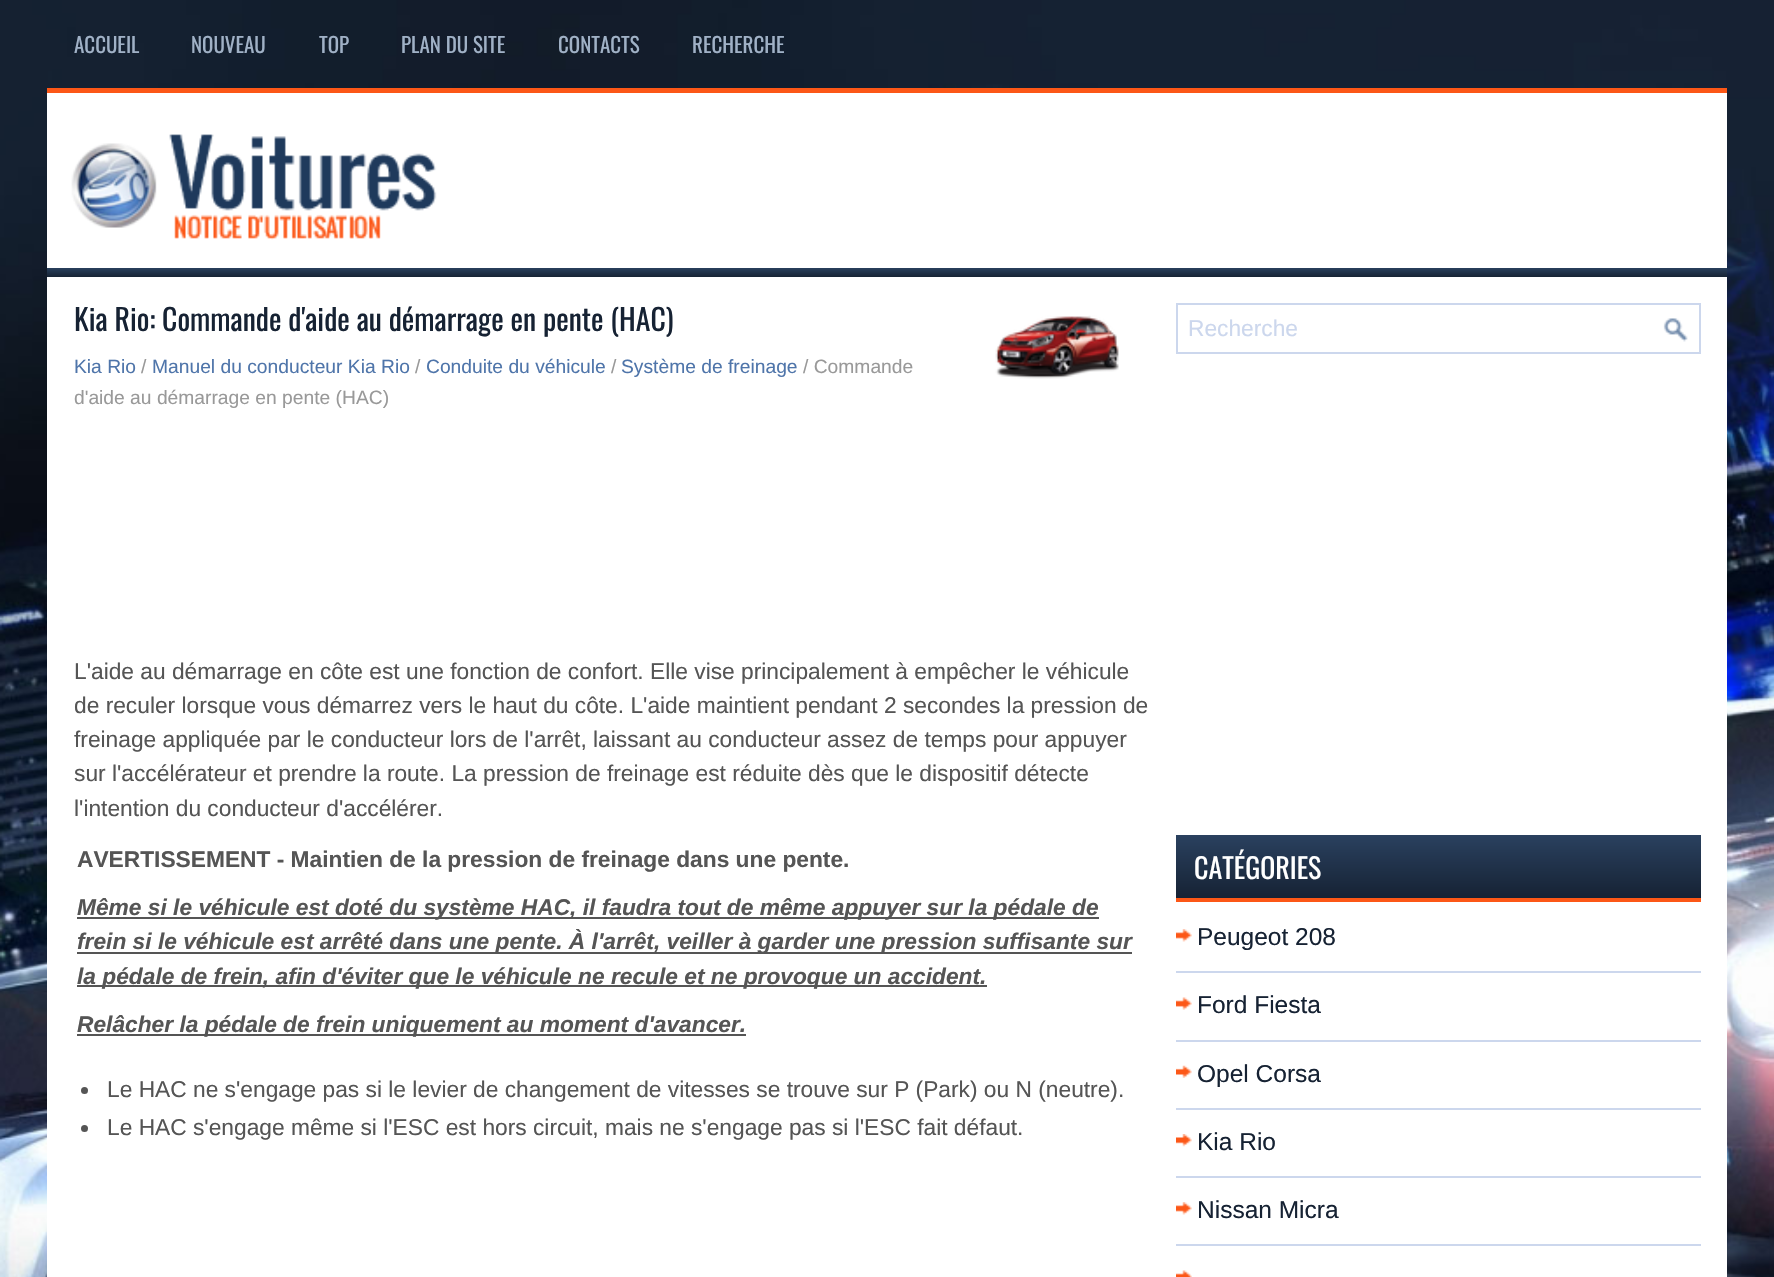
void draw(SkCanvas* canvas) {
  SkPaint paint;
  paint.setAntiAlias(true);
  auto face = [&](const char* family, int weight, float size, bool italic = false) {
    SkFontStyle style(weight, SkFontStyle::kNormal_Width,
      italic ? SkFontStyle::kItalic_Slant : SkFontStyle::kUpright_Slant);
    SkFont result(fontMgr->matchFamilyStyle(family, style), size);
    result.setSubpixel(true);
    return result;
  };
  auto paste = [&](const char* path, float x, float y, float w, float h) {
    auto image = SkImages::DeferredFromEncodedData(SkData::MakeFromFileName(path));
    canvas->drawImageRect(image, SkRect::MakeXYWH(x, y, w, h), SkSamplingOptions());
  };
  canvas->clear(0xffffffff);
  paste("img/1.png", 0, 0, 1774, 1277);
  paint.setColor(0xffffffff);
  canvas->drawRect(SkRect::MakeXYWH(47, 93, 1680, 175), paint);
  paint.setColor(0xfffc5717);
  canvas->drawRect(SkRect::MakeXYWH(47, 88, 1680, 5), paint);
  paste("img/2.png", 71, 134, 366, 106);
  {
    const SkColor colors[] = {0xff29405d, 0xff172334};
    const float stops[] = {0, 1};
    const SkPoint ends[] = {{887, 268}, {887, 277}};
    paint.setShader(SkGradientShader::MakeLinear(ends, colors, stops, 2, SkTileMode::kClamp));
    paint.setAlpha(255);
  }
  canvas->drawRect(SkRect::MakeXYWH(47, 268, 1680, 9), paint);
  paint.setShader(nullptr);
  paint.setColor(0xffffffff);
  canvas->drawRect(SkRect::MakeXYWH(47, 277, 1680, 1000), paint);
  paste("img/3.png", 995, 315, 124, 64);
  {
    const struct { float x, y, w, h; SkColor color; } items[] = {
      {77, 917, 1022, 2, 0xff555555},
      {77, 952, 1055, 2, 0xff555555},
      {77, 985, 910, 2, 0xff555555},
      {77, 1034, 669, 2, 0xff555555},
    };
    for (auto [x, y, w, h, color] : items) {
      paint.setColor(color);
      canvas->drawRect(SkRect::MakeXYWH(x, y, w, h), paint);
    }
  }
  canvas->drawCircle(84.5f, 1090.5f, 3.5f, paint);
  canvas->drawCircle(84.5f, 1128.5f, 3.5f, paint);
  paint.setStroke(true);
  paint.setStrokeWidth(2);
  paint.setColor(0xffccd7ed);
  canvas->drawRect(SkRect::MakeXYWH(1177, 304, 523, 49), paint);
  paste("img/4.png", 1663, 318, 25, 24);
  paint.setStroke(false);
  {
    const SkColor colors[] = {0xff2a415f, 0xff162234};
    const float stops[] = {0, 1};
    const SkPoint ends[] = {{1439, 835}, {1439, 898}};
    paint.setShader(SkGradientShader::MakeLinear(ends, colors, stops, 2, SkTileMode::kClamp));
    paint.setAlpha(255);
  }
  canvas->drawRect(SkRect::MakeXYWH(1176, 835, 525, 63), paint);
  paint.setShader(nullptr);
  paint.setColor(0xfffc5717);
  canvas->drawRect(SkRect::MakeXYWH(1176, 898, 525, 4), paint);
  paste("img/5.png", 1176, 929, 16, 13);
  paint.setColor(0xffccd7ed);
  canvas->drawRect(SkRect::MakeXYWH(1176, 971, 525, 2), paint);
  paste("img/6.png", 1176, 997, 16, 13);
  canvas->drawRect(SkRect::MakeXYWH(1176, 1040, 525, 2), paint);
  paste("img/7.png", 1176, 1065, 16, 13);
  canvas->drawRect(SkRect::MakeXYWH(1176, 1108, 525, 2), paint);
  paste("img/8.png", 1176, 1134, 16, 13);
  canvas->drawRect(SkRect::MakeXYWH(1176, 1176, 525, 2), paint);
  paste("img/5.png", 1176, 1202, 16, 13);
  canvas->drawRect(SkRect::MakeXYWH(1176, 1244, 525, 2), paint);
  paste("img/9.png", 1176, 1270, 16, 7);
  auto f0 = face("Oswald", 400, 21);
  paint.setColor(0xffa0b1c6);
  {
    const struct { const char* s; float x, y; } items[] = {
      {"ACCUEIL", 74, 53},
      {"NOUVEAU", 191, 53},
      {"TOP", 319, 53},
      {"PLAN DU SITE", 401, 53},
      {"CONTACTS", 558, 53},
      {"RECHERCHE", 692, 53},
    };
    for (auto [s, x, y] : items) {
      canvas->drawString(s, x, y, f0, paint);
    }
  }
  auto f1 = face("Oswald", 400, 29.75f);
  paint.setColor(0xff162233);
  canvas->drawString("Kia Rio: Commande d'aide au démarrage en pente (HAC)", 74, 331, f1, paint);
  auto f2 = face("Liberation Sans", 400, 19.25f);
  paint.setColor(0xff4f75aa);
  canvas->drawString("Kia Rio", 74, 373, f2, paint);
  paint.setColor(0xff999999);
  canvas->drawString("/", 141, 373, f2, paint);
  paint.setColor(0xff4f75aa);
  canvas->drawString("Manuel du conducteur Kia Rio", 152, 373, f2, paint);
  paint.setColor(0xff999999);
  canvas->drawString("/", 415, 373, f2, paint);
  paint.setColor(0xff4f75aa);
  canvas->drawString("Conduite du véhicule", 426, 373, f2, paint);
  paint.setColor(0xff999999);
  canvas->drawString("/", 611, 373, f2, paint);
  paint.setColor(0xff4f75aa);
  canvas->drawString("Système de freinage", 621, 373, f2, paint);
  paint.setColor(0xff999999);
  canvas->drawString("/ Commande", 803, 373, f2, paint);
  canvas->drawString("d'aide au démarrage en pente (HAC)", 74, 404, f2, paint);
  auto f3 = face("Liberation Sans", 400, 22.75f);
  paint.setColor(0xff555555);
  {
    const struct { const char* s; float x, y; } items[] = {
      {"L'aide au démarrage en côte est une fonction de confort. Elle vise principalement à empêcher le véhicule", 74, 679},
      {"de reculer lorsque vous démarrez vers le haut du côte. L'aide maintient pendant 2 secondes la pression de", 74, 713},
      {"freinage appliquée par le conducteur lors de l'arrêt, laissant au conducteur assez de temps pour appuyer", 74, 747},
      {"sur l'accélérateur et prendre la route. La pression de freinage est réduite dès que le dispositif détecte", 74, 781},
      {"l'intention du conducteur d'accélérer.", 74, 816},
    };
    for (auto [s, x, y] : items) {
      canvas->drawString(s, x, y, f3, paint);
    }
  }
  auto f4 = face("Liberation Sans", 700, 22.75f);
  canvas->drawString("AVERTISSEMENT - Maintien de la pression de freinage dans une pente.", 77, 867, f4, paint);
  auto f5 = face("Liberation Sans", 700, 22.75f, true);
  {
    const struct { const char* s; float x, y; } items[] = {
      {"Même si le véhicule est doté du système HAC, il faudra tout de même appuyer sur la pédale de", 77, 915},
      {"frein si le véhicule est arrêté dans une pente. À l'arrêt, veiller à garder une pression suffisante sur", 77, 949},
      {"la pédale de frein, afin d'éviter que le véhicule ne recule et ne provoque un accident.", 77, 984},
      {"Relâcher la pédale de frein uniquement au moment d'avancer.", 77, 1032},
    };
    for (auto [s, x, y] : items) {
      canvas->drawString(s, x, y, f5, paint);
    }
  }
  canvas->drawString("Le HAC ne s'engage pas si le levier de changement de vitesses se trouve sur P (Park) ou N (neutre).", 107, 1097, f3, paint);
  canvas->drawString("Le HAC s'engage même si l'ESC est hors circuit, mais ne s'engage pas si l'ESC fait défaut.", 107, 1135, f3, paint);
  paint.setColor(0xffccd7ed);
  canvas->drawString("Recherche", 1188, 336, f3, paint);
  auto f6 = face("Oswald", 400, 28);
  paint.setColor(0xffffffff);
  canvas->drawString("CATÉGORIES", 1194, 879, f6, paint);
  auto f7 = face("Liberation Sans", 400, 24.5f);
  paint.setColor(0xff162233);
  {
    const struct { const char* s; float x, y; } items[] = {
      {"Peugeot 208", 1197, 945},
      {"Ford Fiesta", 1197, 1013},
      {"Opel Corsa", 1197, 1082},
      {"Kia Rio", 1197, 1150},
      {"Nissan Micra", 1197, 1218},
    };
    for (auto [s, x, y] : items) {
      canvas->drawString(s, x, y, f7, paint);
    }
  }
}
